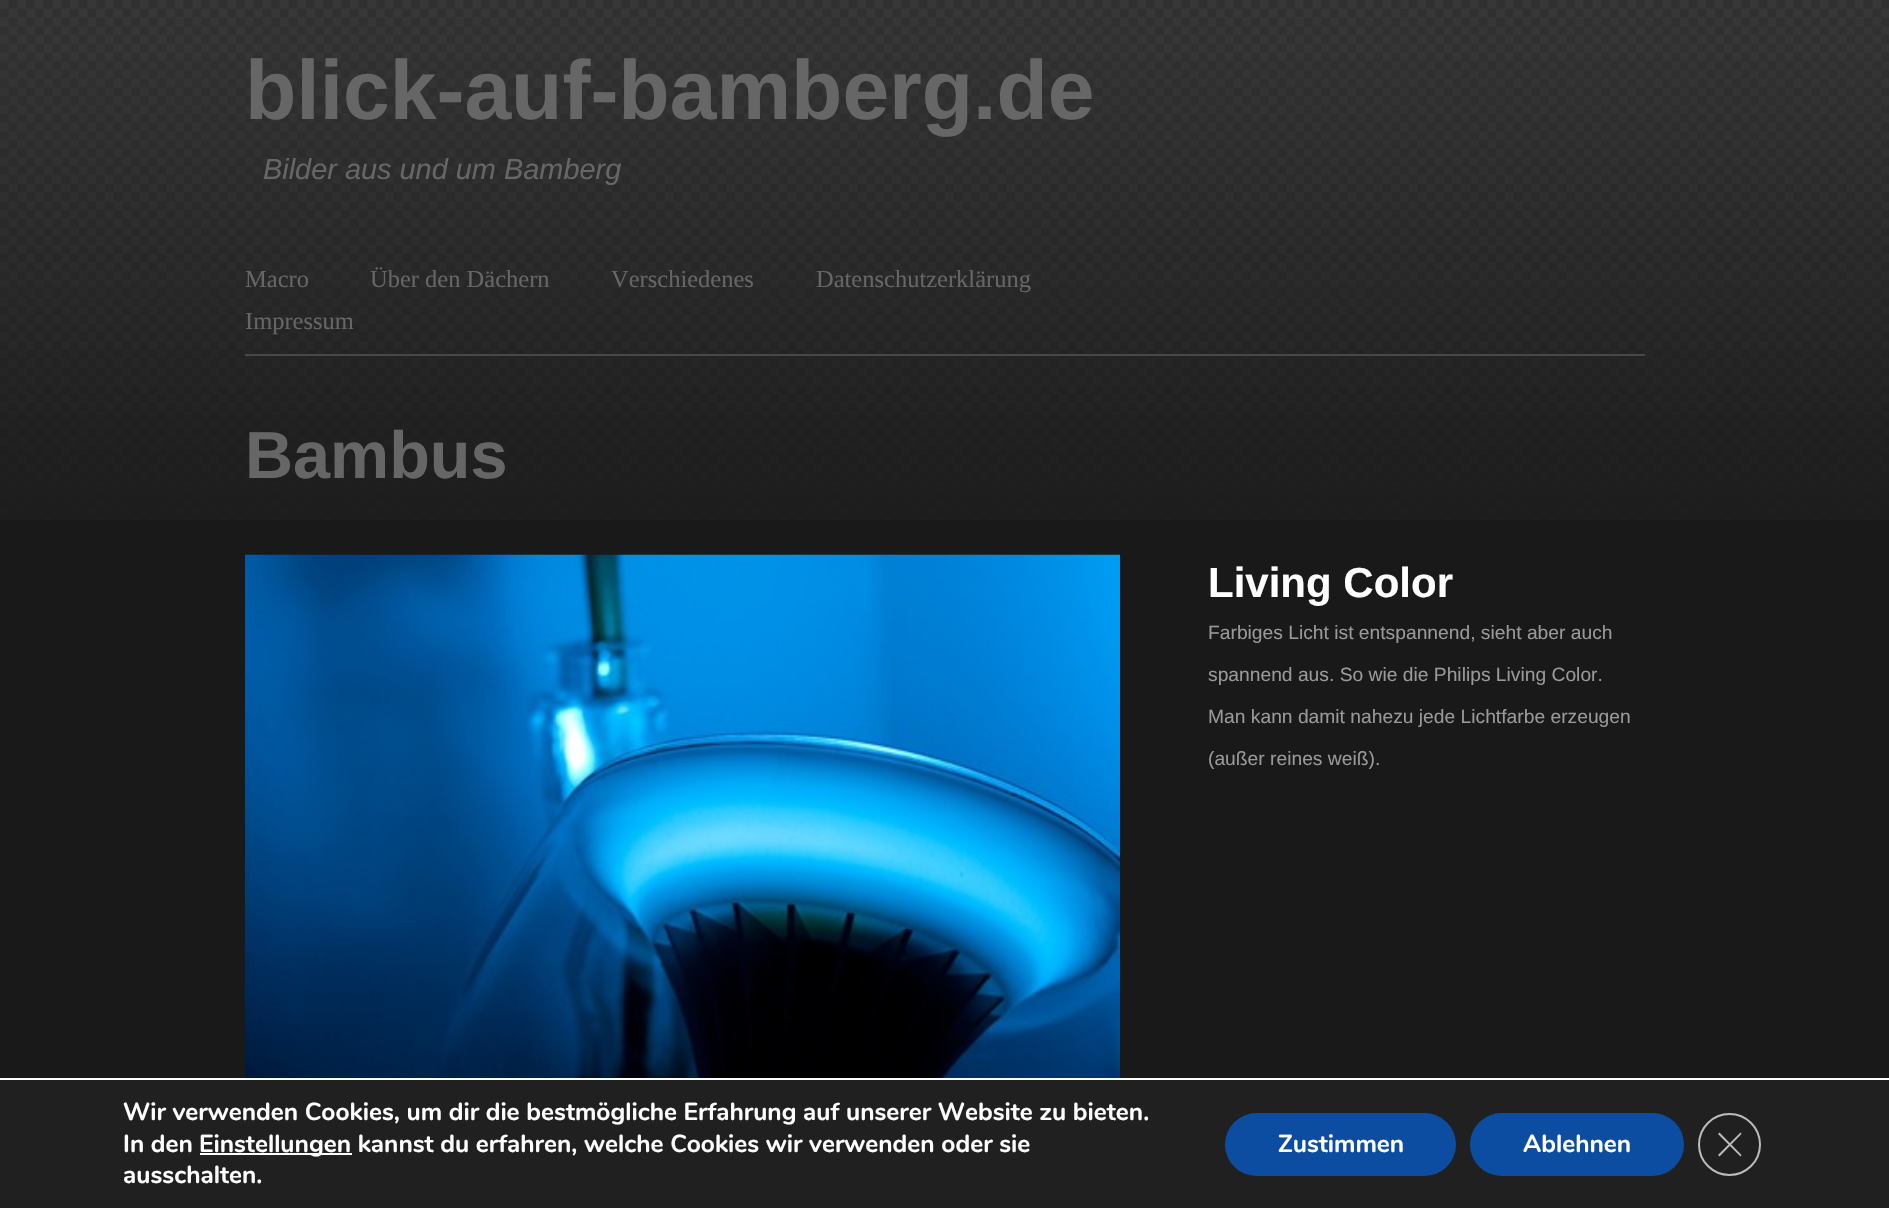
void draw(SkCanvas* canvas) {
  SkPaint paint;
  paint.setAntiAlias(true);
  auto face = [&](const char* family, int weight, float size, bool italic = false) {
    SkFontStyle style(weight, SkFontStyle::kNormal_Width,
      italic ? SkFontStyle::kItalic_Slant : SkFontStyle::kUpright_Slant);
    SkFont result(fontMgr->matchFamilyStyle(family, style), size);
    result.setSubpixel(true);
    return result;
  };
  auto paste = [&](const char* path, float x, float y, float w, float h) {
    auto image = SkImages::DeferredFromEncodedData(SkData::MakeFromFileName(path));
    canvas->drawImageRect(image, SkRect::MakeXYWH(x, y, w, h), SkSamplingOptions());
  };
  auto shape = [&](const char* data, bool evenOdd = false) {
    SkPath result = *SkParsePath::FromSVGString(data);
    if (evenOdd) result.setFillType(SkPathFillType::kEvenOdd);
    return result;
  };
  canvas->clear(0xff191919);
  paste("img/1.png", 0, 0, 1889, 520);
  paint.setColor(0xff484848);
  canvas->drawRect(SkRect::MakeXYWH(245, 354, 1400, 2), paint);
  paste("img/2.png", 245, 554, 875, 524);
  {
    const struct { float x, y, w, h; SkColor color; } items[] = {
      {0, 1080, 1889, 128, 0xff202020},
      {0, 1078, 1889, 2, 0xffffffff},
      {200, 1153, 152, 2, 0xffffffff},
    };
    for (auto [x, y, w, h, color] : items) {
      paint.setColor(color);
      canvas->drawRect(SkRect::MakeXYWH(x, y, w, h), paint);
    }
  }
  paint.setColor(0xff0c4da2);
  canvas->drawRoundRect(SkRect::MakeXYWH(1225, 1113, 231, 63), 31.5f, 31.5f, paint);
  canvas->drawRoundRect(SkRect::MakeXYWH(1470, 1113, 214, 63), 31.5f, 31.5f, paint);
  paint.setStroke(true);
  paint.setStrokeWidth(2);
  paint.setColor(0xffbcbcbc);
  canvas->drawCircle(1729.5f, 1144.5f, 30.5f, paint);
  paint.setStroke(false);
  canvas->drawPath(shape("M1740.5 1132.5L1741.5 1134L1719.5 1156.5L1718 1155Z"), paint);
  canvas->drawPath(shape("M1718 1134L1719.5 1132.5L1741.5 1155L1740.5 1156.5Z"), paint);
  auto f0 = face("Liberation Sans", 700, 84);
  paint.setColor(0xff666666);
  canvas->drawString("blick-auf-bamberg.de", 245, 119, f0, paint);
  auto f1 = face("Liberation Sans", 400, 28.9f, true);
  canvas->drawString("Bilder aus und um Bamberg", 263, 179, f1, paint);
  auto f2 = face("Liberation Serif", 400, 24.5f);
  {
    const struct { const char* s; float x, y; } items[] = {
      {"Macro", 245, 287},
      {"Über den Dächern", 370, 287},
      {"Verschiedenes", 611, 287},
      {"Datenschutzerklärung", 816, 287},
      {"Impressum", 245, 329},
    };
    for (auto [s, x, y] : items) {
      canvas->drawString(s, x, y, f2, paint);
    }
  }
  auto f3 = face("Liberation Sans", 700, 66.5f);
  canvas->drawString("Bambus", 245, 478, f3, paint);
  auto f4 = face("Liberation Sans", 700, 42);
  paint.setColor(0xffffffff);
  canvas->drawString("Living Color", 1208, 597, f4, paint);
  auto f5 = face("Liberation Sans", 400, 19.25f);
  paint.setColor(0xff999999);
  {
    const struct { const char* s; float x, y; } items[] = {
      {"Farbiges Licht ist entspannend, sieht aber auch", 1208, 639},
      {"spannend aus. So wie die Philips Living Color.", 1208, 681},
      {"Man kann damit nahezu jede Lichtfarbe erzeugen", 1208, 723},
      {"(außer reines weiß).", 1208, 765},
    };
    for (auto [s, x, y] : items) {
      canvas->drawString(s, x, y, f5, paint);
    }
  }
  auto f6 = face("Nunito", 700, 24.5f);
  paint.setColor(0xffffffff);
  {
    const struct { const char* s; float x, y; } items[] = {
      {"Wir verwenden Cookies, um dir die bestmögliche Erfahrung auf unserer Website zu bieten.", 123, 1120},
      {"In den", 123, 1152},
      {"Einstellungen kannst du erfahren, welche Cookies wir verwenden oder sie", 199, 1152},
      {"ausschalten.", 123, 1183},
      {"Zustimmen", 1278, 1152},
      {"Ablehnen", 1523, 1152},
    };
    for (auto [s, x, y] : items) {
      canvas->drawString(s, x, y, f6, paint);
    }
  }
}
